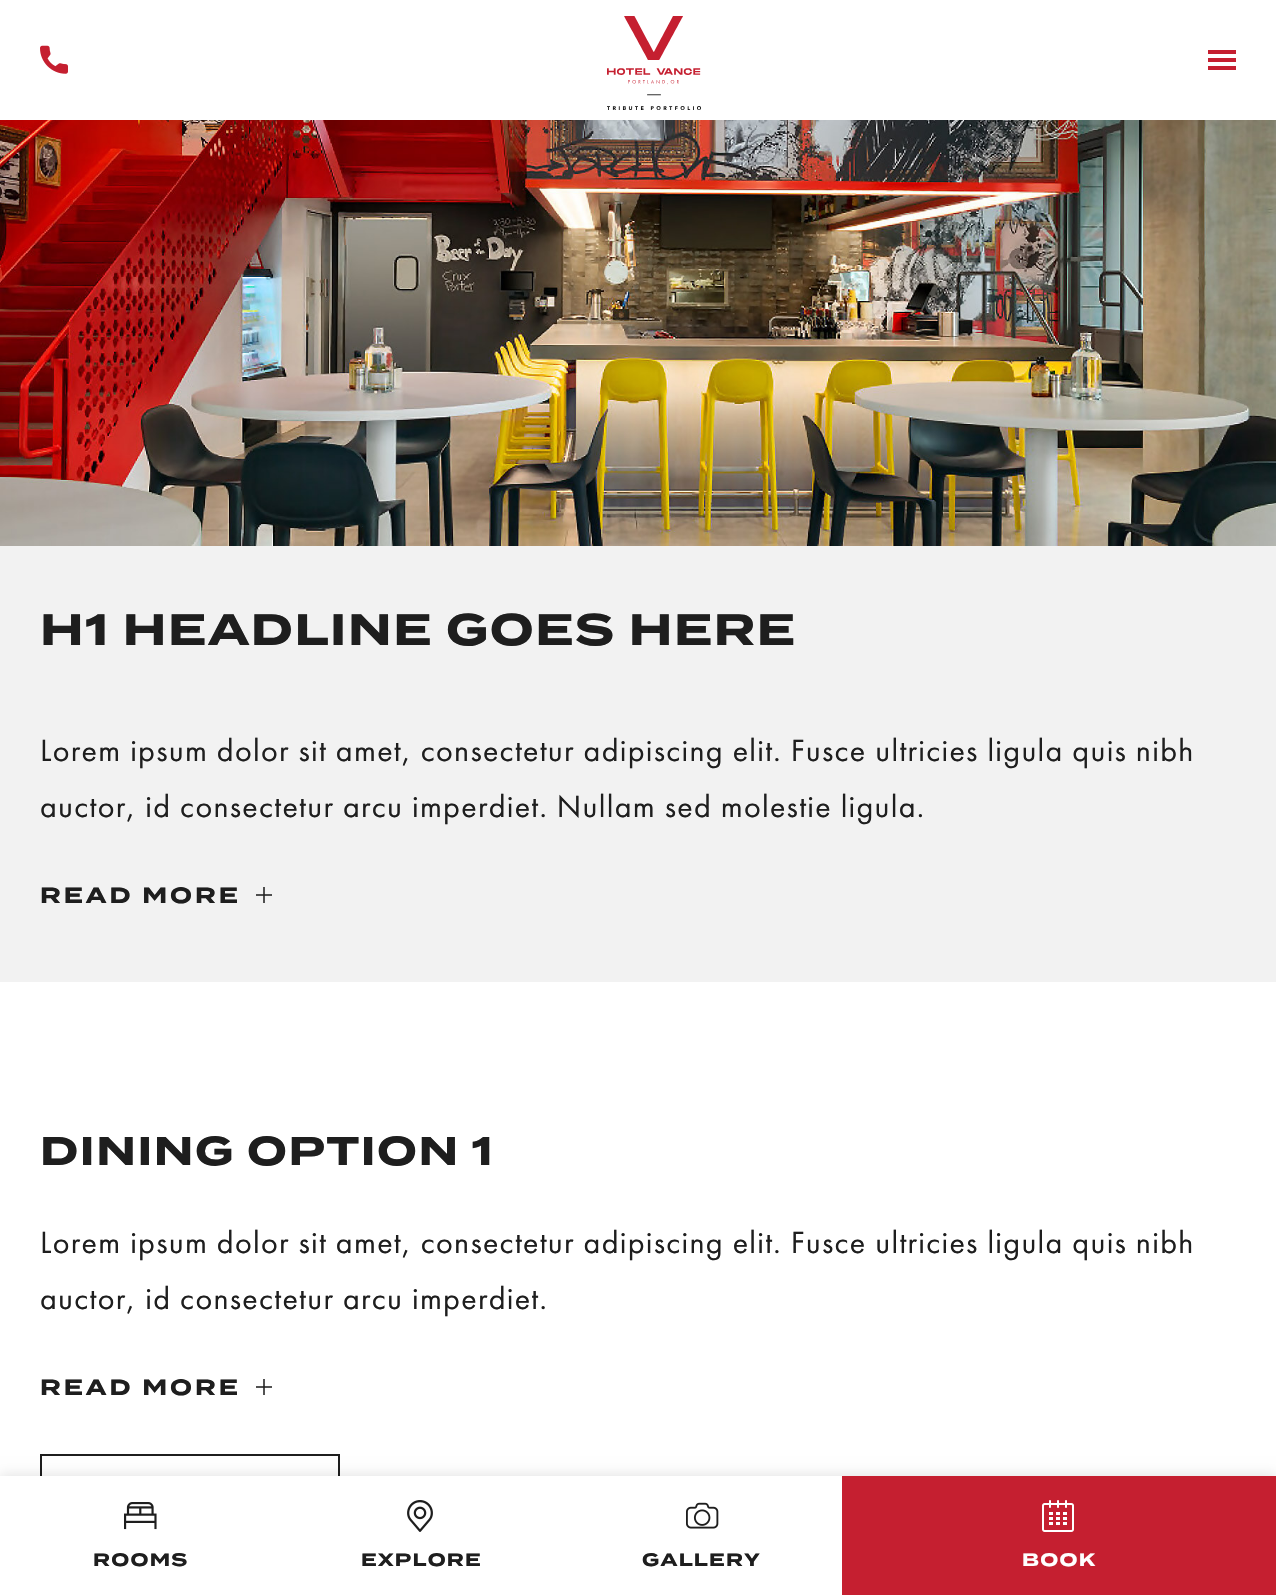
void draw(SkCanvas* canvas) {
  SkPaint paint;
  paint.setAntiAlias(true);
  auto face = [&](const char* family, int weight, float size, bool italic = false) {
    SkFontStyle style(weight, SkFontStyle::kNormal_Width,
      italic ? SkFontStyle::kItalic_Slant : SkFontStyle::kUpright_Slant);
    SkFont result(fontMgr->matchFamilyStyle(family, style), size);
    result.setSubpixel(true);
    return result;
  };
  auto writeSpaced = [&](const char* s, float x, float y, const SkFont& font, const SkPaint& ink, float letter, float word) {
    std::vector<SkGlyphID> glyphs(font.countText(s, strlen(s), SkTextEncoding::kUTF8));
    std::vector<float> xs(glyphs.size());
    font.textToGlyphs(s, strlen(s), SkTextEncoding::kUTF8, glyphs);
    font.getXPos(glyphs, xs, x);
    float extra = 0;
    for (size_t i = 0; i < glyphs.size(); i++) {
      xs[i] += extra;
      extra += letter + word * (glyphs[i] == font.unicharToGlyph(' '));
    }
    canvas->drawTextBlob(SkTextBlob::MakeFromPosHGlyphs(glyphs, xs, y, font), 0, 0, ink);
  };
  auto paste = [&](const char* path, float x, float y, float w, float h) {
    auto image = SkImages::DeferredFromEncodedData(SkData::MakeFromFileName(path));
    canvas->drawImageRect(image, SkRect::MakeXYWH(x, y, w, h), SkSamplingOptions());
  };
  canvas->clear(0xfff2f2f2);
  paint.setColor(0xffffffff);
  canvas->drawRect(SkRect::MakeXYWH(0, 0, 1276, 120), paint);
  paste("img/1.png", 40, 45, 28, 29);
  paste("img/2.png", 607, 16, 94, 94);
  {
    const struct { float x, y, w, h; SkColor color; } items[] = {
      {1208, 50, 28, 4, 0xffc51f30},
      {1208, 58, 28, 4, 0xffc51f30},
      {1208, 66, 28, 4, 0xffc51f30},
    };
    for (auto [x, y, w, h, color] : items) {
      paint.setColor(color);
      canvas->drawRect(SkRect::MakeXYWH(x, y, w, h), paint);
    }
  }
  paste("img/3.png", 0, 120, 1276, 426);
  paste("img/4.png", 256, 887, 16, 16);
  paint.setColor(0xffffffff);
  canvas->drawRect(SkRect::MakeXYWH(0, 982, 1276, 494), paint);
  paste("img/5.png", 256, 1379, 16, 16);
  paint.setStroke(true);
  paint.setStrokeWidth(2);
  paint.setColor(0xff1e1e1e);
  canvas->drawRect(SkRect::MakeXYWH(41, 1455, 298, 82), paint);
  paint.setStroke(false);
  paint.setColor(0x1a000000);
  paint.setMaskFilter(SkMaskFilter::MakeBlur(kNormal_SkBlurStyle, 6));
  canvas->drawRect(SkRect::MakeXYWH(0, 1474, 1276, 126), paint);
  paint.setMaskFilter(nullptr);
  paint.setColor(0xffffffff);
  canvas->drawRect(SkRect::MakeXYWH(0, 1476, 842, 119), paint);
  paste("img/6.png", 124, 1502, 33, 28);
  paste("img/7.png", 407, 1500, 26, 32);
  paste("img/8.png", 686, 1502, 33, 27);
  paint.setColor(0xffc51f30);
  canvas->drawRect(SkRect::MakeXYWH(842, 1476, 434, 119), paint);
  paste("img/9.png", 1042, 1500, 32, 32);
  auto f0 = face("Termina", 700, 44);
  paint.setColor(0xff1e1e1e);
  writeSpaced("H1 HEADLINE GOES HERE", 40, 645, f0, paint, 1.6f, 0);
  auto f1 = face("Futura PT", 400, 32);
  writeSpaced("Lorem ipsum dolor sit amet, consectetur adipiscing elit. Fusce ultricies ligula quis nibh", 40, 761, f1, paint, 1.28f, 0);
  writeSpaced("auctor, id consectetur arcu imperdiet. Nullam sed molestie ligula.", 40, 817, f1, paint, 1.28f, 0);
  auto f2 = face("Termina", 700, 22);
  writeSpaced("READ MORE", 40, 903, f2, paint, 3, 0);
  auto f3 = face("Termina", 700, 40);
  writeSpaced("DINING OPTION 1", 40, 1165, f3, paint, 1.6f, 0);
  writeSpaced("Lorem ipsum dolor sit amet, consectetur adipiscing elit. Fusce ultricies ligula quis nibh", 40, 1253, f1, paint, 1.28f, 0);
  writeSpaced("auctor, id consectetur arcu imperdiet.", 40, 1309, f1, paint, 1.28f, 0);
  writeSpaced("READ MORE", 40, 1395, f2, paint, 3, 0);
  auto f4 = face("Termina", 700, 18);
  {
    const struct { const char* s; float x, y; } items[] = {
      {"ROOMS", 93, 1566},
      {"EXPLORE", 361, 1566},
      {"GALLERY", 642, 1566},
    };
    for (auto [s, x, y] : items) {
      writeSpaced(s, x, y, f4, paint, 1.28f, 0);
    }
  }
  paint.setColor(0xffffffff);
  writeSpaced("BOOK", 1022, 1566, f4, paint, 1.28f, 0);
}
